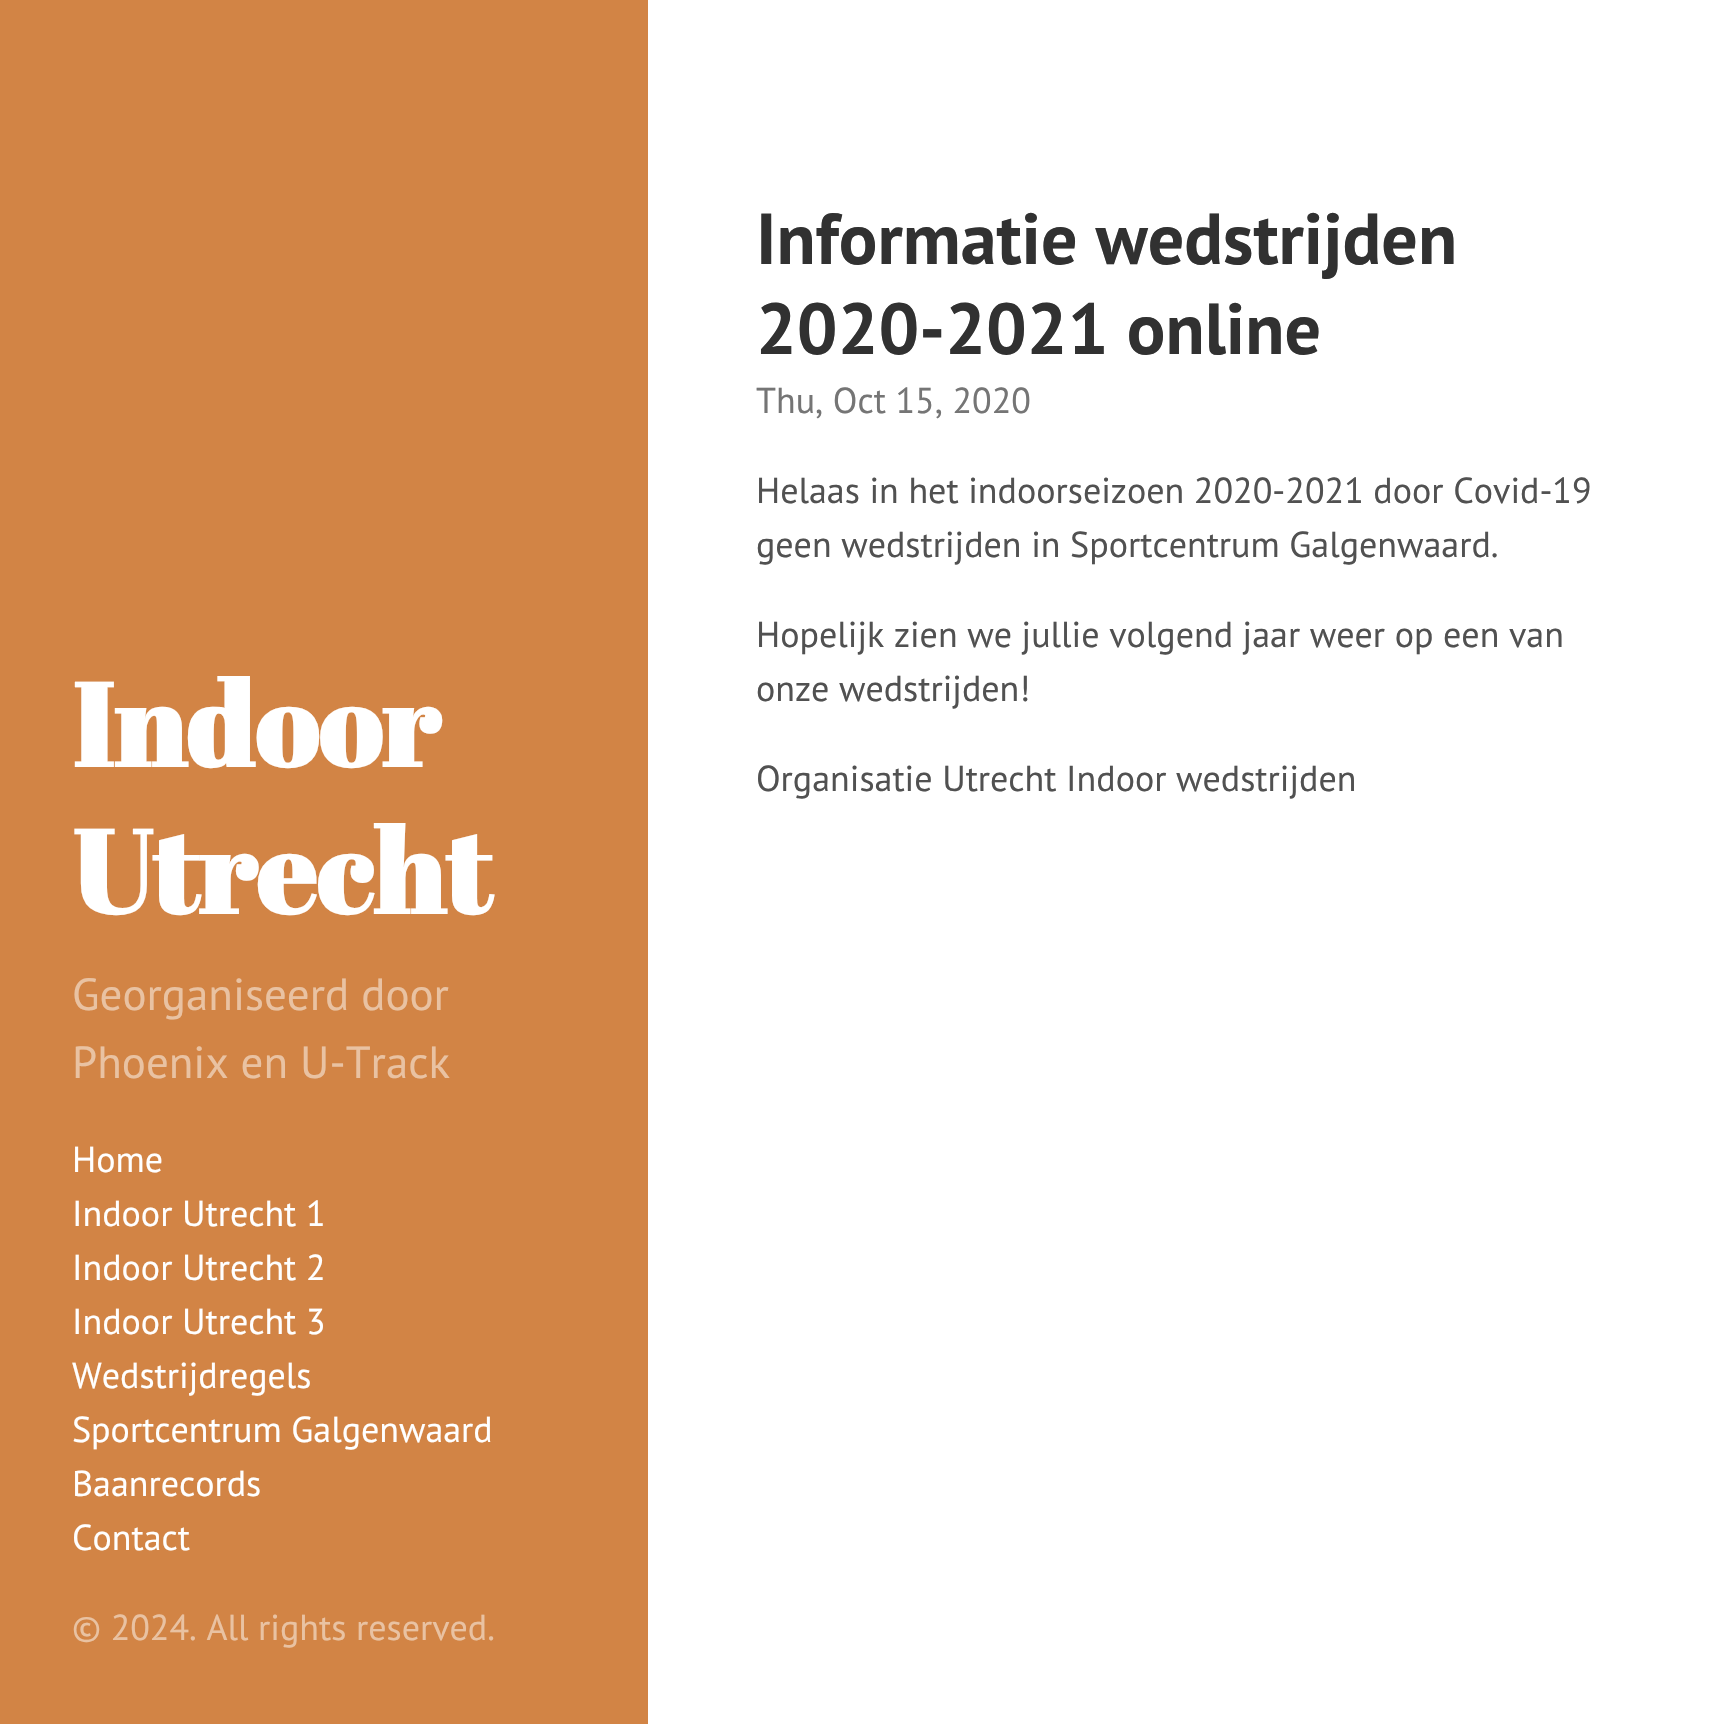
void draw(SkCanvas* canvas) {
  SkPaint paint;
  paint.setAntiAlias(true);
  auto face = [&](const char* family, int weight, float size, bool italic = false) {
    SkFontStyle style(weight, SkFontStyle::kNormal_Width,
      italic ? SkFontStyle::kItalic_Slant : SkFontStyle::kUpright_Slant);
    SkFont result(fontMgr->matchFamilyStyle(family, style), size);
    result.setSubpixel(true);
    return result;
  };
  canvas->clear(0xffffffff);
  paint.setColor(0xffd28445);
  canvas->drawRect(SkRect::MakeXYWH(0, 0, 648, 1724), paint);
  auto f0 = face("PT Sans", 700, 72);
  paint.setColor(0xff313131);
  canvas->drawString("Informatie wedstrijden", 756, 264, f0, paint);
  canvas->drawString("2020-2021 online", 756, 354, f0, paint);
  auto f1 = face("PT Sans", 400, 36);
  paint.setColor(0xff757575);
  canvas->drawString("Thu, Oct 15, 2020", 756, 413, f1, paint);
  paint.setColor(0xff515151);
  {
    const struct { const char* s; float x, y; } items[] = {
      {"Helaas in het indoorseizoen 2020-2021 door Covid-19", 756, 503},
      {"geen wedstrijden in Sportcentrum Galgenwaard.", 756, 557},
      {"Hopelijk zien we jullie volgend jaar weer op een van", 756, 647},
      {"onze wedstrijden!", 756, 701},
      {"Organisatie Utrecht Indoor wedstrijden", 756, 791},
    };
    for (auto [s, x, y] : items) {
      canvas->drawString(s, x, y, f1, paint);
    }
  }
  auto f2 = face("Abril Fatface", 700, 117);
  paint.setColor(0xffffffff);
  canvas->drawString("Indoor", 72, 767, f2, paint);
  canvas->drawString("Utrecht", 72, 914, f2, paint);
  auto f3 = face("PT Sans", 400, 45);
  paint.setColor(0xffe9c2a2);
  canvas->drawString("Georganiseerd door", 72, 1010, f3, paint);
  canvas->drawString("Phoenix en U-Track", 72, 1078, f3, paint);
  paint.setColor(0xffffffff);
  {
    const struct { const char* s; float x, y; } items[] = {
      {"Home", 72, 1172},
      {"Indoor Utrecht 1", 72, 1226},
      {"Indoor Utrecht 2", 72, 1280},
      {"Indoor Utrecht 3", 72, 1334},
      {"Wedstrijdregels", 72, 1388},
      {"Sportcentrum Galgenwaard", 72, 1442},
      {"Baanrecords", 72, 1496},
      {"Contact", 72, 1550},
    };
    for (auto [s, x, y] : items) {
      canvas->drawString(s, x, y, f1, paint);
    }
  }
  paint.setColor(0xffe9c2a2);
  canvas->drawString("© 2024. All rights reserved.", 72, 1640, f1, paint);
}
